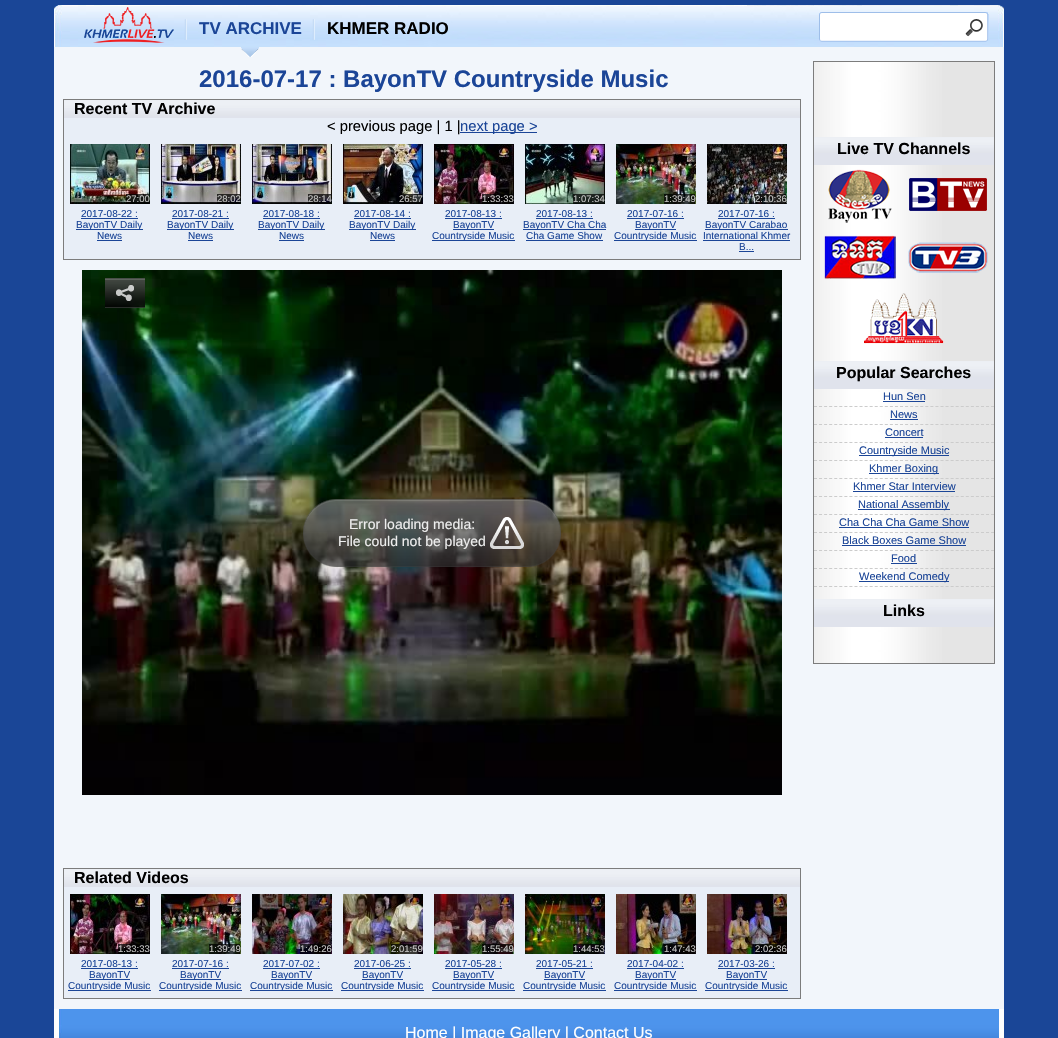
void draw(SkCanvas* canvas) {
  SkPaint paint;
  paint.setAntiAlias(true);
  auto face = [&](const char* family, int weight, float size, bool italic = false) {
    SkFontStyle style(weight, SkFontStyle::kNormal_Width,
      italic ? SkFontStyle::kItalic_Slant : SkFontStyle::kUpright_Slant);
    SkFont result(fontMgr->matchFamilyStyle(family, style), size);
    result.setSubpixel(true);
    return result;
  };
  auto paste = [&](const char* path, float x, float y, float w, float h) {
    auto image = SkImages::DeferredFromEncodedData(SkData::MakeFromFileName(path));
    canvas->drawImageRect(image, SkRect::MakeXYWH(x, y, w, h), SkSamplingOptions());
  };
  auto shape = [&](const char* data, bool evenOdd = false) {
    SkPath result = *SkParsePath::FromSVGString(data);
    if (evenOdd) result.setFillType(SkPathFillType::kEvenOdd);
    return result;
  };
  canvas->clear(0xff1a4697);
  paste("img/1.png", 54, 5, 950, 42);
  paste("img/2.png", 84, 7, 90, 36);
  paste("img/3.png", 184, 19, 3, 21);
  paint.setColor(0xfff2f6fb);
  canvas->drawRect(SkRect::MakeXYWH(54, 47, 950, 962), paint);
  paste("img/4.png", 241, 47, 18, 10);
  paste("img/3.png", 312, 19, 3, 21);
  paste("img/5.png", 819, 12, 170, 30);
  paste("img/6.png", 962, 16, 24, 24);
  paint.setColor(0xffe8eef7);
  canvas->drawRect(SkRect::MakeXYWH(64, 118, 736, 141), paint);
  paint.setStroke(true);
  paint.setStrokeWidth(1);
  paint.setColor(0xff7c7c7c);
  canvas->drawRect(SkRect::MakeXYWH(63.5f, 99.5f, 737, 160), paint);
  paste("img/7.png", 64, 100, 736, 18);
  paint.setStroke(false);
  paint.setColor(0xff1b4597);
  canvas->drawRect(SkRect::MakeXYWH(460, 132, 77, 1), paint);
  paste("img/8.png", 70, 144, 80, 60);
  {
    const struct { float x, y, w, h; SkColor color; } items[] = {
      {126, 194, 23, 10, 0xbf000000},
      {81, 218, 57, 1, 0xff1b4597},
      {76, 229, 67, 1, 0xff1b4597},
      {97, 240, 25, 1, 0xff1b4597},
    };
    for (auto [x, y, w, h, color] : items) {
      paint.setColor(color);
      canvas->drawRect(SkRect::MakeXYWH(x, y, w, h), paint);
    }
  }
  paste("img/9.png", 161, 144, 80, 60);
  {
    const struct { float x, y, w, h; SkColor color; } items[] = {
      {217, 194, 23, 10, 0xbf000000},
      {172, 218, 57, 1, 0xff1b4597},
      {167, 229, 67, 1, 0xff1b4597},
      {188, 240, 25, 1, 0xff1b4597},
    };
    for (auto [x, y, w, h, color] : items) {
      paint.setColor(color);
      canvas->drawRect(SkRect::MakeXYWH(x, y, w, h), paint);
    }
  }
  paste("img/10.png", 252, 144, 80, 60);
  {
    const struct { float x, y, w, h; SkColor color; } items[] = {
      {308, 194, 23, 10, 0xbf000000},
      {263, 218, 57, 1, 0xff1b4597},
      {258, 229, 67, 1, 0xff1b4597},
      {279, 240, 25, 1, 0xff1b4597},
    };
    for (auto [x, y, w, h, color] : items) {
      paint.setColor(color);
      canvas->drawRect(SkRect::MakeXYWH(x, y, w, h), paint);
    }
  }
  paste("img/11.png", 343, 144, 80, 60);
  {
    const struct { float x, y, w, h; SkColor color; } items[] = {
      {399, 194, 23, 10, 0xbf000000},
      {354, 218, 57, 1, 0xff1b4597},
      {349, 229, 67, 1, 0xff1b4597},
      {370, 240, 25, 1, 0xff1b4597},
    };
    for (auto [x, y, w, h, color] : items) {
      paint.setColor(color);
      canvas->drawRect(SkRect::MakeXYWH(x, y, w, h), paint);
    }
  }
  paste("img/12.png", 434, 144, 80, 60);
  {
    const struct { float x, y, w, h; SkColor color; } items[] = {
      {482, 194, 31, 10, 0xbf000000},
      {445, 218, 57, 1, 0xff1b4597},
      {453, 229, 41, 1, 0xff1b4597},
      {432, 240, 83, 1, 0xff1b4597},
    };
    for (auto [x, y, w, h, color] : items) {
      paint.setColor(color);
      canvas->drawRect(SkRect::MakeXYWH(x, y, w, h), paint);
    }
  }
  paste("img/13.png", 525, 144, 80, 60);
  {
    const struct { float x, y, w, h; SkColor color; } items[] = {
      {573, 194, 31, 10, 0xbf000000},
      {536, 218, 57, 1, 0xff1b4597},
      {523, 229, 83, 1, 0xff1b4597},
      {526, 240, 77, 1, 0xff1b4597},
    };
    for (auto [x, y, w, h, color] : items) {
      paint.setColor(color);
      canvas->drawRect(SkRect::MakeXYWH(x, y, w, h), paint);
    }
  }
  paste("img/14.png", 616, 144, 80, 60);
  {
    const struct { float x, y, w, h; SkColor color; } items[] = {
      {664, 194, 31, 10, 0xbf000000},
      {627, 218, 57, 1, 0xff1b4597},
      {635, 229, 41, 1, 0xff1b4597},
      {614, 240, 83, 1, 0xff1b4597},
    };
    for (auto [x, y, w, h, color] : items) {
      paint.setColor(color);
      canvas->drawRect(SkRect::MakeXYWH(x, y, w, h), paint);
    }
  }
  paste("img/15.png", 707, 144, 80, 60);
  {
    const struct { float x, y, w, h; SkColor color; } items[] = {
      {755, 194, 31, 10, 0xbf000000},
      {718, 218, 57, 1, 0xff1b4597},
      {705, 229, 83, 1, 0xff1b4597},
      {703, 240, 87, 1, 0xff1b4597},
      {739, 251, 15, 1, 0xff1b4597},
    };
    for (auto [x, y, w, h, color] : items) {
      paint.setColor(color);
      canvas->drawRect(SkRect::MakeXYWH(x, y, w, h), paint);
    }
  }
  paste("img/18.png", 82, 270, 700, 525);
  paste("img/16.png", 105, 278, 40, 30);
  paste("img/17.png", 116, 285, 18, 16);
  paste("img/19.png", 303, 499, 258, 68);
  paste("img/20.png", 490, 517, 34, 32);
  paint.setColor(0xffe8eef7);
  canvas->drawRect(SkRect::MakeXYWH(64, 887, 736, 111), paint);
  paint.setStroke(true);
  paint.setColor(0xff7c7c7c);
  canvas->drawRect(SkRect::MakeXYWH(63.5f, 868.5f, 737, 130), paint);
  paste("img/7.png", 64, 869, 736, 18);
  paste("img/12.png", 70, 894, 80, 60);
  paint.setStroke(false);
  {
    const struct { float x, y, w, h; SkColor color; } items[] = {
      {118, 944, 31, 10, 0xbf000000},
      {81, 968, 57, 1, 0xff1b4597},
      {89, 979, 41, 1, 0xff1b4597},
      {68, 990, 83, 1, 0xff1b4597},
    };
    for (auto [x, y, w, h, color] : items) {
      paint.setColor(color);
      canvas->drawRect(SkRect::MakeXYWH(x, y, w, h), paint);
    }
  }
  paste("img/14.png", 161, 894, 80, 60);
  {
    const struct { float x, y, w, h; SkColor color; } items[] = {
      {209, 944, 31, 10, 0xbf000000},
      {172, 968, 57, 1, 0xff1b4597},
      {180, 979, 41, 1, 0xff1b4597},
      {159, 990, 83, 1, 0xff1b4597},
    };
    for (auto [x, y, w, h, color] : items) {
      paint.setColor(color);
      canvas->drawRect(SkRect::MakeXYWH(x, y, w, h), paint);
    }
  }
  paste("img/21.png", 252, 894, 80, 60);
  {
    const struct { float x, y, w, h; SkColor color; } items[] = {
      {300, 944, 31, 10, 0xbf000000},
      {263, 968, 57, 1, 0xff1b4597},
      {271, 979, 41, 1, 0xff1b4597},
      {250, 990, 83, 1, 0xff1b4597},
    };
    for (auto [x, y, w, h, color] : items) {
      paint.setColor(color);
      canvas->drawRect(SkRect::MakeXYWH(x, y, w, h), paint);
    }
  }
  paste("img/22.png", 343, 894, 80, 60);
  {
    const struct { float x, y, w, h; SkColor color; } items[] = {
      {391, 944, 31, 10, 0xbf000000},
      {354, 968, 57, 1, 0xff1b4597},
      {362, 979, 41, 1, 0xff1b4597},
      {341, 990, 83, 1, 0xff1b4597},
    };
    for (auto [x, y, w, h, color] : items) {
      paint.setColor(color);
      canvas->drawRect(SkRect::MakeXYWH(x, y, w, h), paint);
    }
  }
  paste("img/23.png", 434, 894, 80, 60);
  {
    const struct { float x, y, w, h; SkColor color; } items[] = {
      {482, 944, 31, 10, 0xbf000000},
      {445, 968, 57, 1, 0xff1b4597},
      {453, 979, 41, 1, 0xff1b4597},
      {432, 990, 83, 1, 0xff1b4597},
    };
    for (auto [x, y, w, h, color] : items) {
      paint.setColor(color);
      canvas->drawRect(SkRect::MakeXYWH(x, y, w, h), paint);
    }
  }
  paste("img/24.png", 525, 894, 80, 60);
  {
    const struct { float x, y, w, h; SkColor color; } items[] = {
      {573, 944, 31, 10, 0xbf000000},
      {536, 968, 57, 1, 0xff1b4597},
      {544, 979, 41, 1, 0xff1b4597},
      {523, 990, 83, 1, 0xff1b4597},
    };
    for (auto [x, y, w, h, color] : items) {
      paint.setColor(color);
      canvas->drawRect(SkRect::MakeXYWH(x, y, w, h), paint);
    }
  }
  paste("img/25.png", 616, 894, 80, 60);
  {
    const struct { float x, y, w, h; SkColor color; } items[] = {
      {664, 944, 31, 10, 0xbf000000},
      {627, 968, 57, 1, 0xff1b4597},
      {635, 979, 41, 1, 0xff1b4597},
      {614, 990, 83, 1, 0xff1b4597},
    };
    for (auto [x, y, w, h, color] : items) {
      paint.setColor(color);
      canvas->drawRect(SkRect::MakeXYWH(x, y, w, h), paint);
    }
  }
  paste("img/26.png", 707, 894, 80, 60);
  {
    const struct { float x, y, w, h; SkColor color; } items[] = {
      {755, 944, 31, 10, 0xbf000000},
      {718, 968, 57, 1, 0xff1b4597},
      {726, 979, 41, 1, 0xff1b4597},
      {705, 990, 83, 1, 0xff1b4597},
    };
    for (auto [x, y, w, h, color] : items) {
      paint.setColor(color);
      canvas->drawRect(SkRect::MakeXYWH(x, y, w, h), paint);
    }
  }
  paste("img/27.png", 814, 62, 180, 601);
  paint.setStroke(true);
  paint.setColor(0xff7c7c7c);
  canvas->drawRect(SkRect::MakeXYWH(813.5f, 61.5f, 181, 602), paint);
  paste("img/28.png", 814, 137, 180, 28);
  paste("img/29.png", 828, 169, 64, 54);
  paste("img/30.png", 909, 178, 78, 33);
  paste("img/31.png", 824, 235, 72, 44);
  paste("img/32.png", 908, 242, 80, 31);
  paste("img/33.png", 864, 293, 80, 51);
  paste("img/28.png", 814, 361, 180, 28);
  paint.setColor(0xffcccccc);
  paint.setPathEffect(SkDashPathEffect::Make({{3, 2.06f}}, 0));
  canvas->drawPath(shape("M814 406.5H994"), paint);
  paint.setPathEffect(nullptr);
  paint.setStroke(false);
  paint.setColor(0xff1b4597);
  canvas->drawRect(SkRect::MakeXYWH(883, 401, 42, 1), paint);
  paint.setStroke(true);
  paint.setColor(0xffcccccc);
  paint.setPathEffect(SkDashPathEffect::Make({{3, 2.06f}}, 0));
  canvas->drawPath(shape("M814 424.5H994"), paint);
  paint.setPathEffect(nullptr);
  paint.setStroke(false);
  paint.setColor(0xff1b4597);
  canvas->drawRect(SkRect::MakeXYWH(890, 419, 28, 1), paint);
  paint.setStroke(true);
  paint.setColor(0xffcccccc);
  paint.setPathEffect(SkDashPathEffect::Make({{3, 2.06f}}, 0));
  canvas->drawPath(shape("M814 442.5H994"), paint);
  paint.setPathEffect(nullptr);
  paint.setStroke(false);
  paint.setColor(0xff1b4597);
  canvas->drawRect(SkRect::MakeXYWH(885, 437, 38, 1), paint);
  paint.setStroke(true);
  paint.setColor(0xffcccccc);
  paint.setPathEffect(SkDashPathEffect::Make({{3, 2.06f}}, 0));
  canvas->drawPath(shape("M814 460.5H994"), paint);
  paint.setPathEffect(nullptr);
  paint.setStroke(false);
  paint.setColor(0xff1b4597);
  canvas->drawRect(SkRect::MakeXYWH(859, 455, 90, 1), paint);
  paint.setStroke(true);
  paint.setColor(0xffcccccc);
  paint.setPathEffect(SkDashPathEffect::Make({{3, 2.06f}}, 0));
  canvas->drawPath(shape("M814 478.5H994"), paint);
  paint.setPathEffect(nullptr);
  paint.setStroke(false);
  paint.setColor(0xff1b4597);
  canvas->drawRect(SkRect::MakeXYWH(869, 473, 70, 1), paint);
  paint.setStroke(true);
  paint.setColor(0xffcccccc);
  paint.setPathEffect(SkDashPathEffect::Make({{3, 2.06f}}, 0));
  canvas->drawPath(shape("M814 496.5H994"), paint);
  paint.setPathEffect(nullptr);
  paint.setStroke(false);
  paint.setColor(0xff1b4597);
  canvas->drawRect(SkRect::MakeXYWH(853, 491, 102, 1), paint);
  paint.setStroke(true);
  paint.setColor(0xffcccccc);
  paint.setPathEffect(SkDashPathEffect::Make({{3, 2.06f}}, 0));
  canvas->drawPath(shape("M814 514.5H994"), paint);
  paint.setPathEffect(nullptr);
  paint.setStroke(false);
  paint.setColor(0xff1b4597);
  canvas->drawRect(SkRect::MakeXYWH(858, 509, 92, 1), paint);
  paint.setStroke(true);
  paint.setColor(0xffcccccc);
  paint.setPathEffect(SkDashPathEffect::Make({{3, 2.06f}}, 0));
  canvas->drawPath(shape("M814 532.5H994"), paint);
  paint.setPathEffect(nullptr);
  paint.setStroke(false);
  paint.setColor(0xff1b4597);
  canvas->drawRect(SkRect::MakeXYWH(839, 527, 130, 1), paint);
  paint.setStroke(true);
  paint.setColor(0xffcccccc);
  paint.setPathEffect(SkDashPathEffect::Make({{3, 2.06f}}, 0));
  canvas->drawPath(shape("M814 550.5H994"), paint);
  paint.setPathEffect(nullptr);
  paint.setStroke(false);
  paint.setColor(0xff1b4597);
  canvas->drawRect(SkRect::MakeXYWH(842, 545, 124, 1), paint);
  paint.setStroke(true);
  paint.setColor(0xffcccccc);
  paint.setPathEffect(SkDashPathEffect::Make({{3, 2.06f}}, 0));
  canvas->drawPath(shape("M814 568.5H994"), paint);
  paint.setPathEffect(nullptr);
  paint.setStroke(false);
  paint.setColor(0xff1b4597);
  canvas->drawRect(SkRect::MakeXYWH(891, 563, 26, 1), paint);
  paint.setStroke(true);
  paint.setColor(0xffcccccc);
  paint.setPathEffect(SkDashPathEffect::Make({{3, 2.06f}}, 0));
  canvas->drawPath(shape("M814 586.5H994"), paint);
  paint.setPathEffect(nullptr);
  paint.setStroke(false);
  paint.setColor(0xff1b4597);
  canvas->drawRect(SkRect::MakeXYWH(859, 581, 90, 1), paint);
  paste("img/28.png", 814, 599, 180, 28);
  paste("img/34.png", 54, 1009, 950, 29);
  auto f0 = face("Liberation Sans", 700, 17);
  canvas->drawString("TV ARCHIVE", 199, 34, f0, paint);
  paint.setColor(0xff000000);
  canvas->drawString("KHMER RADIO", 327, 34, f0, paint);
  auto f1 = face("Liberation Sans", 700, 24);
  paint.setColor(0xff1b4597);
  canvas->drawString("2016-07-17 : BayonTV Countryside Music", 199, 87, f1, paint);
  auto f2 = face("Liberation Sans", 700, 16);
  paint.setColor(0xff000000);
  canvas->drawString("Recent TV Archive", 74, 114, f2, paint);
  auto f3 = face("Liberation Sans", 400, 14.75f);
  canvas->drawString("< previous page | 1 |", 327, 131, f3, paint);
  paint.setColor(0xff1b4597);
  canvas->drawString("next page >", 460, 131, f3, paint);
  auto f4 = face("Liberation Sans", 400, 9.5f);
  paint.setColor(0xffc5c5c4);
  canvas->drawString("27:00", 126, 202, f4, paint);
  auto f5 = face("Liberation Sans", 400, 10);
  paint.setColor(0xff1b4597);
  {
    const struct { const char* s; float x, y; } items[] = {
      {"2017-08-22 :", 81, 217},
      {"BayonTV Daily", 76, 228},
      {"News", 97, 239},
    };
    for (auto [s, x, y] : items) {
      canvas->drawString(s, x, y, f5, paint);
    }
  }
  paint.setColor(0xffc5c5c4);
  canvas->drawString("28:02", 217, 202, f4, paint);
  paint.setColor(0xff1b4597);
  {
    const struct { const char* s; float x, y; } items[] = {
      {"2017-08-21 :", 172, 217},
      {"BayonTV Daily", 167, 228},
      {"News", 188, 239},
    };
    for (auto [s, x, y] : items) {
      canvas->drawString(s, x, y, f5, paint);
    }
  }
  paint.setColor(0xffc5c5c4);
  canvas->drawString("28:14", 308, 202, f4, paint);
  paint.setColor(0xff1b4597);
  {
    const struct { const char* s; float x, y; } items[] = {
      {"2017-08-18 :", 263, 217},
      {"BayonTV Daily", 258, 228},
      {"News", 279, 239},
    };
    for (auto [s, x, y] : items) {
      canvas->drawString(s, x, y, f5, paint);
    }
  }
  paint.setColor(0xffc5c5c4);
  canvas->drawString("26:57", 399, 202, f4, paint);
  paint.setColor(0xff1b4597);
  {
    const struct { const char* s; float x, y; } items[] = {
      {"2017-08-14 :", 354, 217},
      {"BayonTV Daily", 349, 228},
      {"News", 370, 239},
    };
    for (auto [s, x, y] : items) {
      canvas->drawString(s, x, y, f5, paint);
    }
  }
  paint.setColor(0xffc5c5c4);
  canvas->drawString("1:33:33", 482, 202, f4, paint);
  paint.setColor(0xff1b4597);
  {
    const struct { const char* s; float x, y; } items[] = {
      {"2017-08-13 :", 445, 217},
      {"BayonTV", 453, 228},
      {"Countryside Music", 432, 239},
    };
    for (auto [s, x, y] : items) {
      canvas->drawString(s, x, y, f5, paint);
    }
  }
  paint.setColor(0xffc5c5c4);
  canvas->drawString("1:07:34", 573, 202, f4, paint);
  paint.setColor(0xff1b4597);
  {
    const struct { const char* s; float x, y; } items[] = {
      {"2017-08-13 :", 536, 217},
      {"BayonTV Cha Cha", 523, 228},
      {"Cha Game Show", 526, 239},
    };
    for (auto [s, x, y] : items) {
      canvas->drawString(s, x, y, f5, paint);
    }
  }
  paint.setColor(0xffc5c5c4);
  canvas->drawString("1:39:49", 664, 202, f4, paint);
  paint.setColor(0xff1b4597);
  {
    const struct { const char* s; float x, y; } items[] = {
      {"2017-07-16 :", 627, 217},
      {"BayonTV", 635, 228},
      {"Countryside Music", 614, 239},
    };
    for (auto [s, x, y] : items) {
      canvas->drawString(s, x, y, f5, paint);
    }
  }
  paint.setColor(0xffc5c5c4);
  canvas->drawString("2:10:36", 755, 202, f4, paint);
  paint.setColor(0xff1b4597);
  {
    const struct { const char* s; float x, y; } items[] = {
      {"2017-07-16 :", 718, 217},
      {"BayonTV Carabao", 705, 228},
      {"International Khmer", 703, 239},
      {"B...", 739, 250},
    };
    for (auto [s, x, y] : items) {
      canvas->drawString(s, x, y, f5, paint);
    }
  }
  auto f6 = face("Liberation Sans", 400, 14);
  paint.setColor(0xffeeeeee);
  canvas->drawString("Error loading media:", 349, 529, f6, paint);
  canvas->drawString("File could not be played", 338, 546, f6, paint);
  paint.setColor(0xff000000);
  canvas->drawString("Related Videos", 74, 883, f2, paint);
  paint.setColor(0xffc5c5c4);
  canvas->drawString("1:33:33", 118, 952, f4, paint);
  paint.setColor(0xff1b4597);
  {
    const struct { const char* s; float x, y; } items[] = {
      {"2017-08-13 :", 81, 967},
      {"BayonTV", 89, 978},
      {"Countryside Music", 68, 989},
    };
    for (auto [s, x, y] : items) {
      canvas->drawString(s, x, y, f5, paint);
    }
  }
  paint.setColor(0xffc5c5c4);
  canvas->drawString("1:39:49", 209, 952, f4, paint);
  paint.setColor(0xff1b4597);
  {
    const struct { const char* s; float x, y; } items[] = {
      {"2017-07-16 :", 172, 967},
      {"BayonTV", 180, 978},
      {"Countryside Music", 159, 989},
    };
    for (auto [s, x, y] : items) {
      canvas->drawString(s, x, y, f5, paint);
    }
  }
  paint.setColor(0xffc5c5c4);
  canvas->drawString("1:49:26", 300, 952, f4, paint);
  paint.setColor(0xff1b4597);
  {
    const struct { const char* s; float x, y; } items[] = {
      {"2017-07-02 :", 263, 967},
      {"BayonTV", 271, 978},
      {"Countryside Music", 250, 989},
    };
    for (auto [s, x, y] : items) {
      canvas->drawString(s, x, y, f5, paint);
    }
  }
  paint.setColor(0xffc5c5c4);
  canvas->drawString("2:01:59", 391, 952, f4, paint);
  paint.setColor(0xff1b4597);
  {
    const struct { const char* s; float x, y; } items[] = {
      {"2017-06-25 :", 354, 967},
      {"BayonTV", 362, 978},
      {"Countryside Music", 341, 989},
    };
    for (auto [s, x, y] : items) {
      canvas->drawString(s, x, y, f5, paint);
    }
  }
  paint.setColor(0xffc5c5c4);
  canvas->drawString("1:55:49", 482, 952, f4, paint);
  paint.setColor(0xff1b4597);
  {
    const struct { const char* s; float x, y; } items[] = {
      {"2017-05-28 :", 445, 967},
      {"BayonTV", 453, 978},
      {"Countryside Music", 432, 989},
    };
    for (auto [s, x, y] : items) {
      canvas->drawString(s, x, y, f5, paint);
    }
  }
  paint.setColor(0xffc5c5c4);
  canvas->drawString("1:44:53", 573, 952, f4, paint);
  paint.setColor(0xff1b4597);
  {
    const struct { const char* s; float x, y; } items[] = {
      {"2017-05-21 :", 536, 967},
      {"BayonTV", 544, 978},
      {"Countryside Music", 523, 989},
    };
    for (auto [s, x, y] : items) {
      canvas->drawString(s, x, y, f5, paint);
    }
  }
  paint.setColor(0xffc5c5c4);
  canvas->drawString("1:47:43", 664, 952, f4, paint);
  paint.setColor(0xff1b4597);
  {
    const struct { const char* s; float x, y; } items[] = {
      {"2017-04-02 :", 627, 967},
      {"BayonTV", 635, 978},
      {"Countryside Music", 614, 989},
    };
    for (auto [s, x, y] : items) {
      canvas->drawString(s, x, y, f5, paint);
    }
  }
  paint.setColor(0xffc5c5c4);
  canvas->drawString("2:02:36", 755, 952, f4, paint);
  paint.setColor(0xff1b4597);
  {
    const struct { const char* s; float x, y; } items[] = {
      {"2017-03-26 :", 718, 967},
      {"BayonTV", 726, 978},
      {"Countryside Music", 705, 989},
    };
    for (auto [s, x, y] : items) {
      canvas->drawString(s, x, y, f5, paint);
    }
  }
  paint.setColor(0xff000000);
  canvas->drawString("Live TV Channels", 837, 154, f2, paint);
  canvas->drawString("Popular Searches", 836, 378, f2, paint);
  auto f7 = face("Liberation Sans", 400, 11);
  paint.setColor(0xff1b4597);
  {
    const struct { const char* s; float x, y; } items[] = {
      {"Hun Sen", 883, 400},
      {"News", 890, 418},
      {"Concert", 885, 436},
      {"Countryside Music", 859, 454},
      {"Khmer Boxing", 869, 472},
      {"Khmer Star Interview", 853, 490},
      {"National Assembly", 858, 508},
      {"Cha Cha Cha Game Show", 839, 526},
      {"Black Boxes Game Show", 842, 544},
      {"Food", 891, 562},
      {"Weekend Comedy", 859, 580},
    };
    for (auto [s, x, y] : items) {
      canvas->drawString(s, x, y, f7, paint);
    }
  }
  paint.setColor(0xff000000);
  canvas->drawString("Links", 883, 616, f2, paint);
  auto f8 = face("Liberation Sans", 400, 16);
  paint.setColor(0xffffffff);
  canvas->drawString("Home | Image Gallery | Contact Us", 405, 1038, f8, paint);
}
